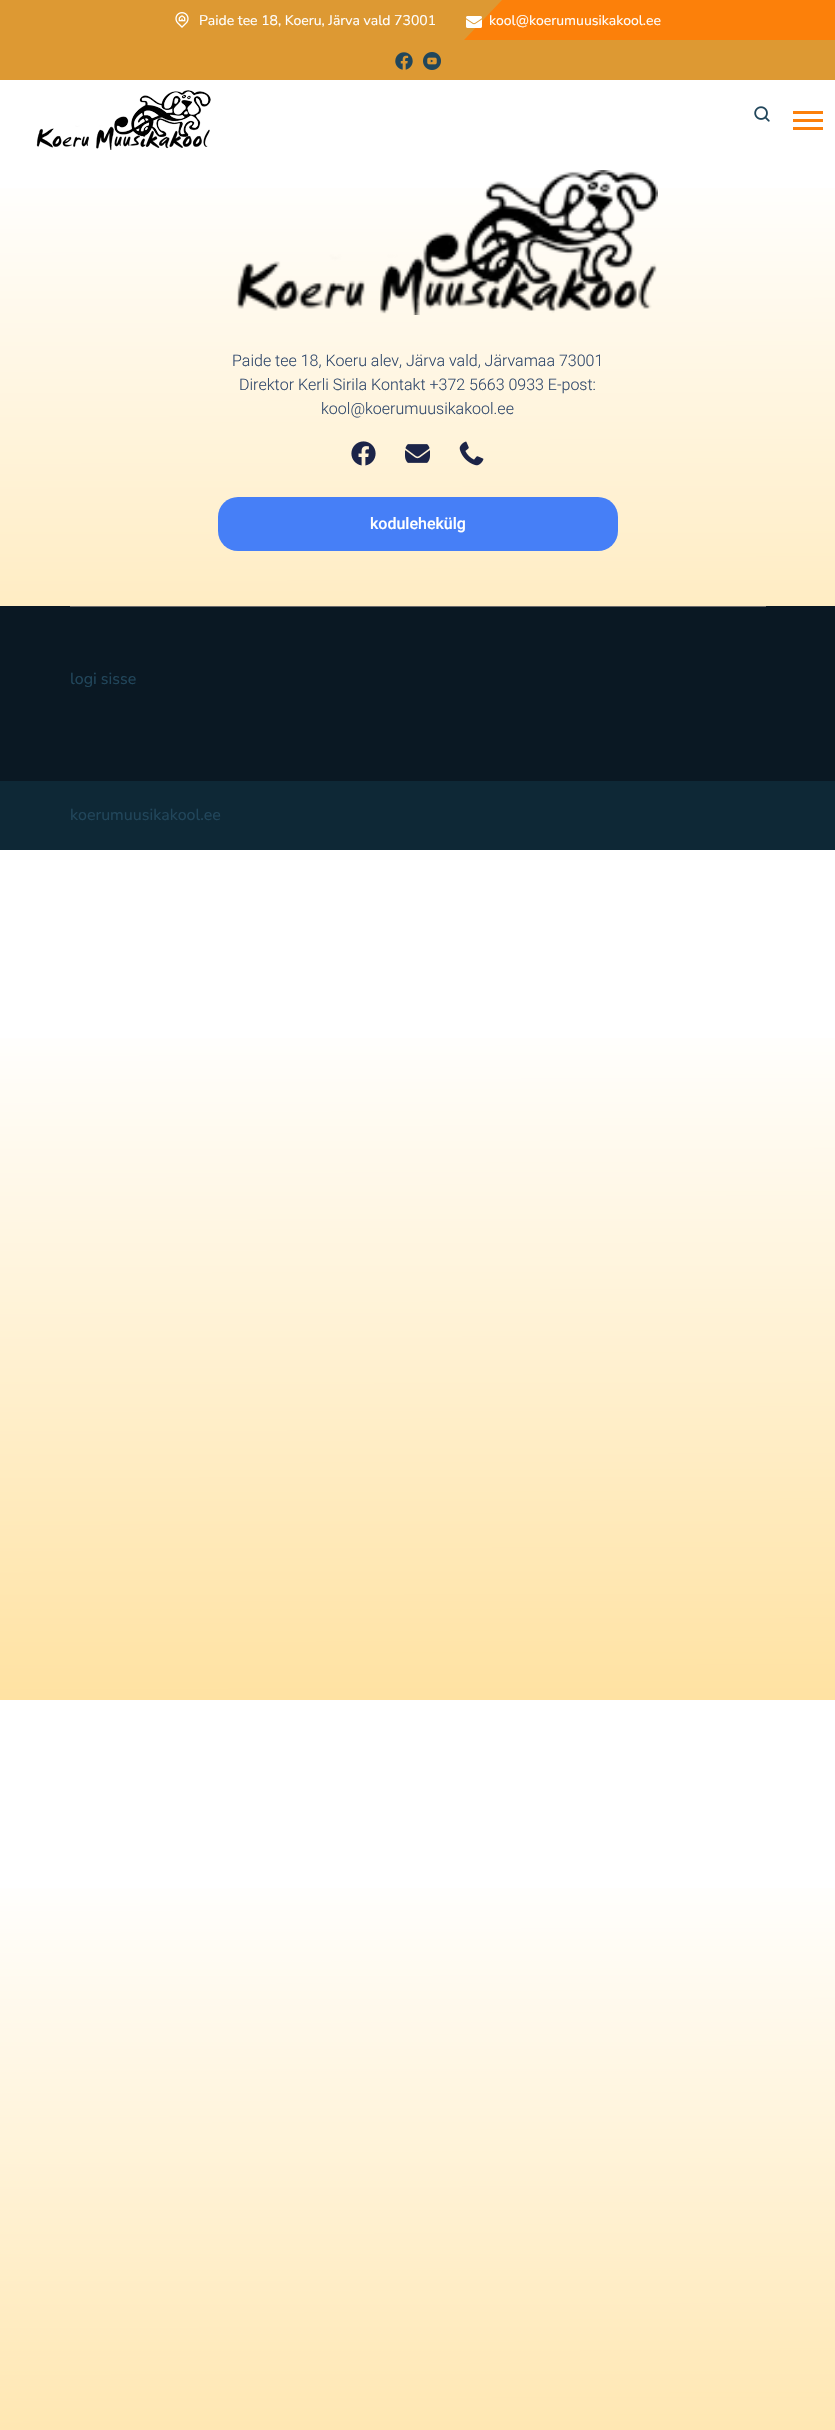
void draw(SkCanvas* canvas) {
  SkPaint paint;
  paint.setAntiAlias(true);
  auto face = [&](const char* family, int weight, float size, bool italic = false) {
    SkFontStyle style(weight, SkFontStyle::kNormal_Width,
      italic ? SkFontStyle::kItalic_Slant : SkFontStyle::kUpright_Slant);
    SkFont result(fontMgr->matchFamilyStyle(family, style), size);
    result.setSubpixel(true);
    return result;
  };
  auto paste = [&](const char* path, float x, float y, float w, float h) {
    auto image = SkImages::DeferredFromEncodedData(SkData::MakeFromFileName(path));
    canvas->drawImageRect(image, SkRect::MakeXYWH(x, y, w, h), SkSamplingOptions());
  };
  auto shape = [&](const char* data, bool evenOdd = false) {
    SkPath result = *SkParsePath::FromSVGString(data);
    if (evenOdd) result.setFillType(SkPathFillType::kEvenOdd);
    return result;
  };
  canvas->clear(0xffffffff);
  {
    const SkColor colors[] = {0xffffffff, 0xffffe2a2};
    const float stops[] = {0.2f, 1};
    const SkPoint ends[] = {{417, 0}, {418, 850}};
    paint.setShader(SkGradientShader::MakeLinear(ends, colors, stops, 2, SkTileMode::kClamp));
    paint.setAlpha(255);
  }
  canvas->drawRect(SkRect::MakeXYWH(0, 188, 835, 418), paint);
  {
    const SkColor colors[] = {0xffffffff, 0xffffe2a2};
    const float stops[] = {0.2f, 1};
    const SkPoint ends[] = {{417, 850}, {418, 1700}};
    paint.setShader(SkGradientShader::MakeLinear(ends, colors, stops, 2, SkTileMode::kClamp));
    paint.setAlpha(255);
  }
  canvas->drawRect(SkRect::MakeXYWH(0, 1038, 835, 662), paint);
  {
    const SkColor colors[] = {0xffffffff, 0xffffe2a2};
    const float stops[] = {0.2f, 1};
    const SkPoint ends[] = {{417, 1700}, {418, 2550}};
    paint.setShader(SkGradientShader::MakeLinear(ends, colors, stops, 2, SkTileMode::kClamp));
    paint.setAlpha(255);
  }
  canvas->drawRect(SkRect::MakeXYWH(0, 1888, 835, 542), paint);
  paint.setShader(nullptr);
  paint.setColor(0xffdd9933);
  canvas->drawRect(SkRect::MakeXYWH(0, 40, 835, 40), paint);
  paint.setColor(0xfffc800a);
  canvas->drawRect(SkRect::MakeXYWH(464, 0, 371, 40), paint);
  paint.setColor(0xffdd9933);
  canvas->drawPath(shape("M-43 0V40H464L502 0Z"), paint);
  paste("img/1.png", 175, 12, 14, 16);
  paste("img/2.png", 466, 16, 16, 12);
  paste("img/3.png", 395, 52, 18, 18);
  paste("img/4.png", 423, 52, 18, 18);
  paste("img/5.png", 36, 90, 175, 60);
  paste("img/6.png", 754, 106, 16, 16);
  {
    const struct { float x, y, w, h; SkColor color; } items[] = {
      {793, 111, 30, 3, 0xfffc800a},
      {793, 119, 30, 3, 0xfffc800a},
      {793, 127, 30, 3, 0xfffc800a},
    };
    for (auto [x, y, w, h, color] : items) {
      paint.setColor(color);
      canvas->drawRect(SkRect::MakeXYWH(x, y, w, h), paint);
    }
  }
  paste("img/7.png", 236, 170, 422, 145);
  paste("img/8.png", 351, 441, 25, 25);
  paste("img/9.png", 405, 444, 25, 19);
  paste("img/10.png", 459, 441, 25, 25);
  paint.setColor(0xff467ff7);
  canvas->drawRoundRect(SkRect::MakeXYWH(218, 497, 400, 54), 20, 20, paint);
  {
    const struct { float x, y, w, h; SkColor color; } items[] = {
      {0, 606, 835, 175, 0xff0a1823},
      {70, 606, 696, 1, 0xff6b6b6b},
      {0, 781, 835, 69, 0xff0e2836},
    };
    for (auto [x, y, w, h, color] : items) {
      paint.setColor(color);
      canvas->drawRect(SkRect::MakeXYWH(x, y, w, h), paint);
    }
  }
  auto f0 = face("Nunito Sans", 200, 14);
  paint.setColor(0xffffffff);
  canvas->drawString("Paide tee 18, Koeru, Järva vald 73001", 199, 25, f0, paint);
  canvas->drawString("kool@koerumuusikakool.ee", 489, 25, f0, paint);
  auto f1 = face("Roboto", 300, 16);
  paint.setColor(0xff324a6d);
  {
    const struct { const char* s; float x, y; } items[] = {
      {"Paide tee 18, Koeru alev, Järva vald, Järvamaa 73001", 232, 366},
      {"Direktor Kerli Sirila Kontakt +372 5663 0933 E-post:", 239, 390},
      {"kool@koerumuusikakool.ee", 321, 414},
    };
    for (auto [s, x, y] : items) {
      canvas->drawString(s, x, y, f1, paint);
    }
  }
  auto f2 = face("Roboto", 500, 16);
  paint.setColor(0xffffffff);
  canvas->drawString("kodulehekülg", 370, 529, f2, paint);
  auto f3 = face("Nunito Sans", 200, 16);
  paint.setColor(0xff21465b);
  canvas->drawString("logi sisse", 70, 684, f3, paint);
  canvas->drawString("koerumuusikakool.ee", 70, 820, f3, paint);
}
